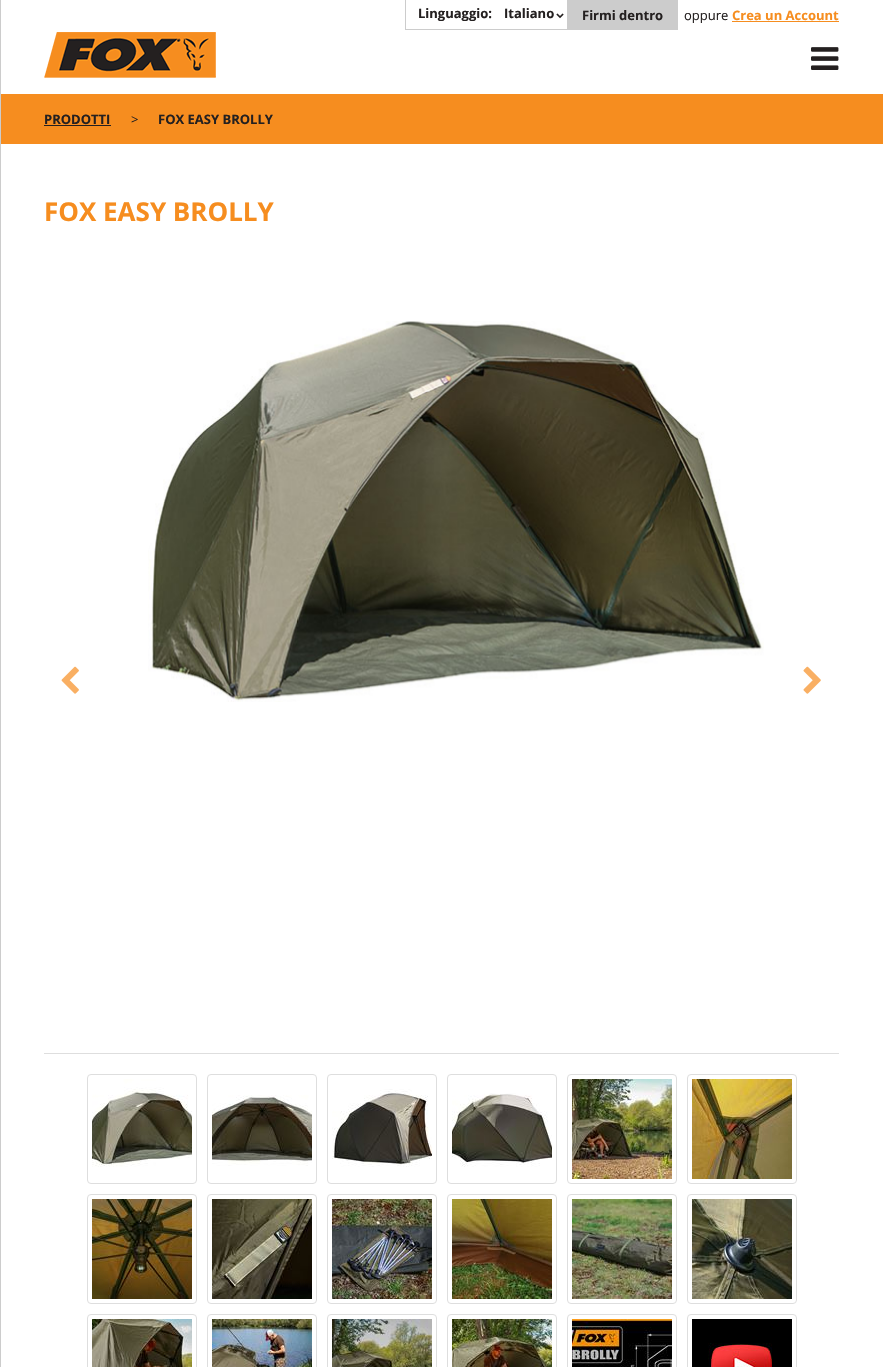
void draw(SkCanvas* canvas) {
  SkPaint paint;
  paint.setAntiAlias(true);
  auto face = [&](const char* family, int weight, float size, bool italic = false) {
    SkFontStyle style(weight, SkFontStyle::kNormal_Width,
      italic ? SkFontStyle::kItalic_Slant : SkFontStyle::kUpright_Slant);
    SkFont result(fontMgr->matchFamilyStyle(family, style), size);
    result.setSubpixel(true);
    return result;
  };
  auto paste = [&](const char* path, float x, float y, float w, float h) {
    auto image = SkImages::DeferredFromEncodedData(SkData::MakeFromFileName(path));
    canvas->drawImageRect(image, SkRect::MakeXYWH(x, y, w, h), SkSamplingOptions());
  };
  canvas->clear(0xffffffff);
  {
    const struct { float x, y, w, h; SkColor color; } items[] = {
      {0, 0, 1, 1367, 0xffcccccc},
      {567, 0, 111, 30, 0xffcccccc},
      {405, 29, 164, 1, 0xffcccccc},
      {405, 0, 1, 30, 0xffcccccc},
    };
    for (auto [x, y, w, h, color] : items) {
      paint.setColor(color);
      canvas->drawRect(SkRect::MakeXYWH(x, y, w, h), paint);
    }
  }
  paste("img/1.png", 556, 13, 8, 6);
  paint.setColor(0xfff68d1f);
  canvas->drawRect(SkRect::MakeXYWH(732, 21, 107, 1), paint);
  paste("img/2.png", 811, 47, 28, 23);
  paste("img/3.png", 44, 32, 172, 46);
  canvas->drawRect(SkRect::MakeXYWH(1, 94, 882, 50), paint);
  paint.setColor(0xff242020);
  canvas->drawRect(SkRect::MakeXYWH(44, 125, 67, 1), paint);
  paste("img/4.png", 61, 666, 18, 28);
  paste("img/5.png", 148, 321, 616, 381);
  paste("img/6.png", 803, 666, 18, 28);
  paint.setColor(0xffdedede);
  canvas->drawRect(SkRect::MakeXYWH(44, 1053, 795, 1), paint);
  paint.setStroke(true);
  paint.setStrokeWidth(1);
  canvas->drawRoundRect(SkRect::MakeXYWH(87.5f, 1074.5f, 109, 109), 3.5f, 3.5f, paint);
  paste("img/7.png", 92, 1079, 100, 88);
  canvas->drawRoundRect(SkRect::MakeXYWH(207.5f, 1074.5f, 109, 109), 3.5f, 3.5f, paint);
  paste("img/8.png", 212, 1095, 100, 71);
  canvas->drawRoundRect(SkRect::MakeXYWH(327.5f, 1074.5f, 109, 109), 3.5f, 3.5f, paint);
  paste("img/9.png", 332, 1089, 100, 78);
  canvas->drawRoundRect(SkRect::MakeXYWH(447.5f, 1074.5f, 109, 109), 3.5f, 3.5f, paint);
  paste("img/10.png", 452, 1093, 100, 74);
  canvas->drawRoundRect(SkRect::MakeXYWH(567.5f, 1074.5f, 109, 109), 3.5f, 3.5f, paint);
  paste("img/11.png", 572, 1079, 100, 100);
  canvas->drawRoundRect(SkRect::MakeXYWH(687.5f, 1074.5f, 109, 109), 3.5f, 3.5f, paint);
  paste("img/12.png", 692, 1079, 100, 100);
  canvas->drawRoundRect(SkRect::MakeXYWH(87.5f, 1194.5f, 109, 109), 3.5f, 3.5f, paint);
  paste("img/13.png", 92, 1199, 100, 100);
  canvas->drawRoundRect(SkRect::MakeXYWH(207.5f, 1194.5f, 109, 109), 3.5f, 3.5f, paint);
  paste("img/14.png", 212, 1199, 100, 100);
  canvas->drawRoundRect(SkRect::MakeXYWH(327.5f, 1194.5f, 109, 109), 3.5f, 3.5f, paint);
  paste("img/15.png", 332, 1199, 100, 100);
  canvas->drawRoundRect(SkRect::MakeXYWH(447.5f, 1194.5f, 109, 109), 3.5f, 3.5f, paint);
  paste("img/16.png", 452, 1199, 100, 100);
  canvas->drawRoundRect(SkRect::MakeXYWH(567.5f, 1194.5f, 109, 109), 3.5f, 3.5f, paint);
  paste("img/17.png", 572, 1199, 100, 100);
  canvas->drawRoundRect(SkRect::MakeXYWH(687.5f, 1194.5f, 109, 109), 3.5f, 3.5f, paint);
  paste("img/18.png", 692, 1199, 100, 100);
  canvas->drawRoundRect(SkRect::MakeXYWH(87.5f, 1314.5f, 109, 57), 3.5f, 3.5f, paint);
  paste("img/19.png", 92, 1319, 100, 48);
  canvas->drawRoundRect(SkRect::MakeXYWH(207.5f, 1314.5f, 109, 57), 3.5f, 3.5f, paint);
  paste("img/20.png", 212, 1319, 100, 48);
  canvas->drawRoundRect(SkRect::MakeXYWH(327.5f, 1314.5f, 109, 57), 3.5f, 3.5f, paint);
  paste("img/21.png", 332, 1319, 100, 48);
  canvas->drawRoundRect(SkRect::MakeXYWH(447.5f, 1314.5f, 109, 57), 3.5f, 3.5f, paint);
  paste("img/22.png", 452, 1319, 100, 48);
  canvas->drawRoundRect(SkRect::MakeXYWH(567.5f, 1314.5f, 109, 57), 3.5f, 3.5f, paint);
  paste("img/23.png", 572, 1319, 100, 48);
  canvas->drawRoundRect(SkRect::MakeXYWH(687.5f, 1314.5f, 109, 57), 3.5f, 3.5f, paint);
  paste("img/24.png", 692, 1319, 100, 48);
  auto f0 = face("Open Sans", 700, 13);
  paint.setStroke(false);
  paint.setColor(0xff242020);
  {
    const struct { const char* s; float x, y; } items[] = {
      {"Linguaggio:", 418, 18},
      {"Italiano", 504, 18},
      {"Firmi dentro", 582, 20},
    };
    for (auto [s, x, y] : items) {
      canvas->drawString(s, x, y, f0, paint);
    }
  }
  auto f1 = face("Open Sans", 400, 13);
  canvas->drawString("oppure", 684, 20, f1, paint);
  paint.setColor(0xfff68d1f);
  canvas->drawString("Crea un Account", 732, 20, f0, paint);
  paint.setColor(0xff242020);
  canvas->drawString("PRODOTTI", 44, 124, f0, paint);
  canvas->drawString(">", 131, 124, f1, paint);
  canvas->drawString("FOX EASY BROLLY", 158, 124, f0, paint);
  auto f2 = face("Open Sans", 700, 26);
  paint.setColor(0xfff68d1f);
  canvas->drawString("FOX EASY BROLLY", 44, 221, f2, paint);
}
